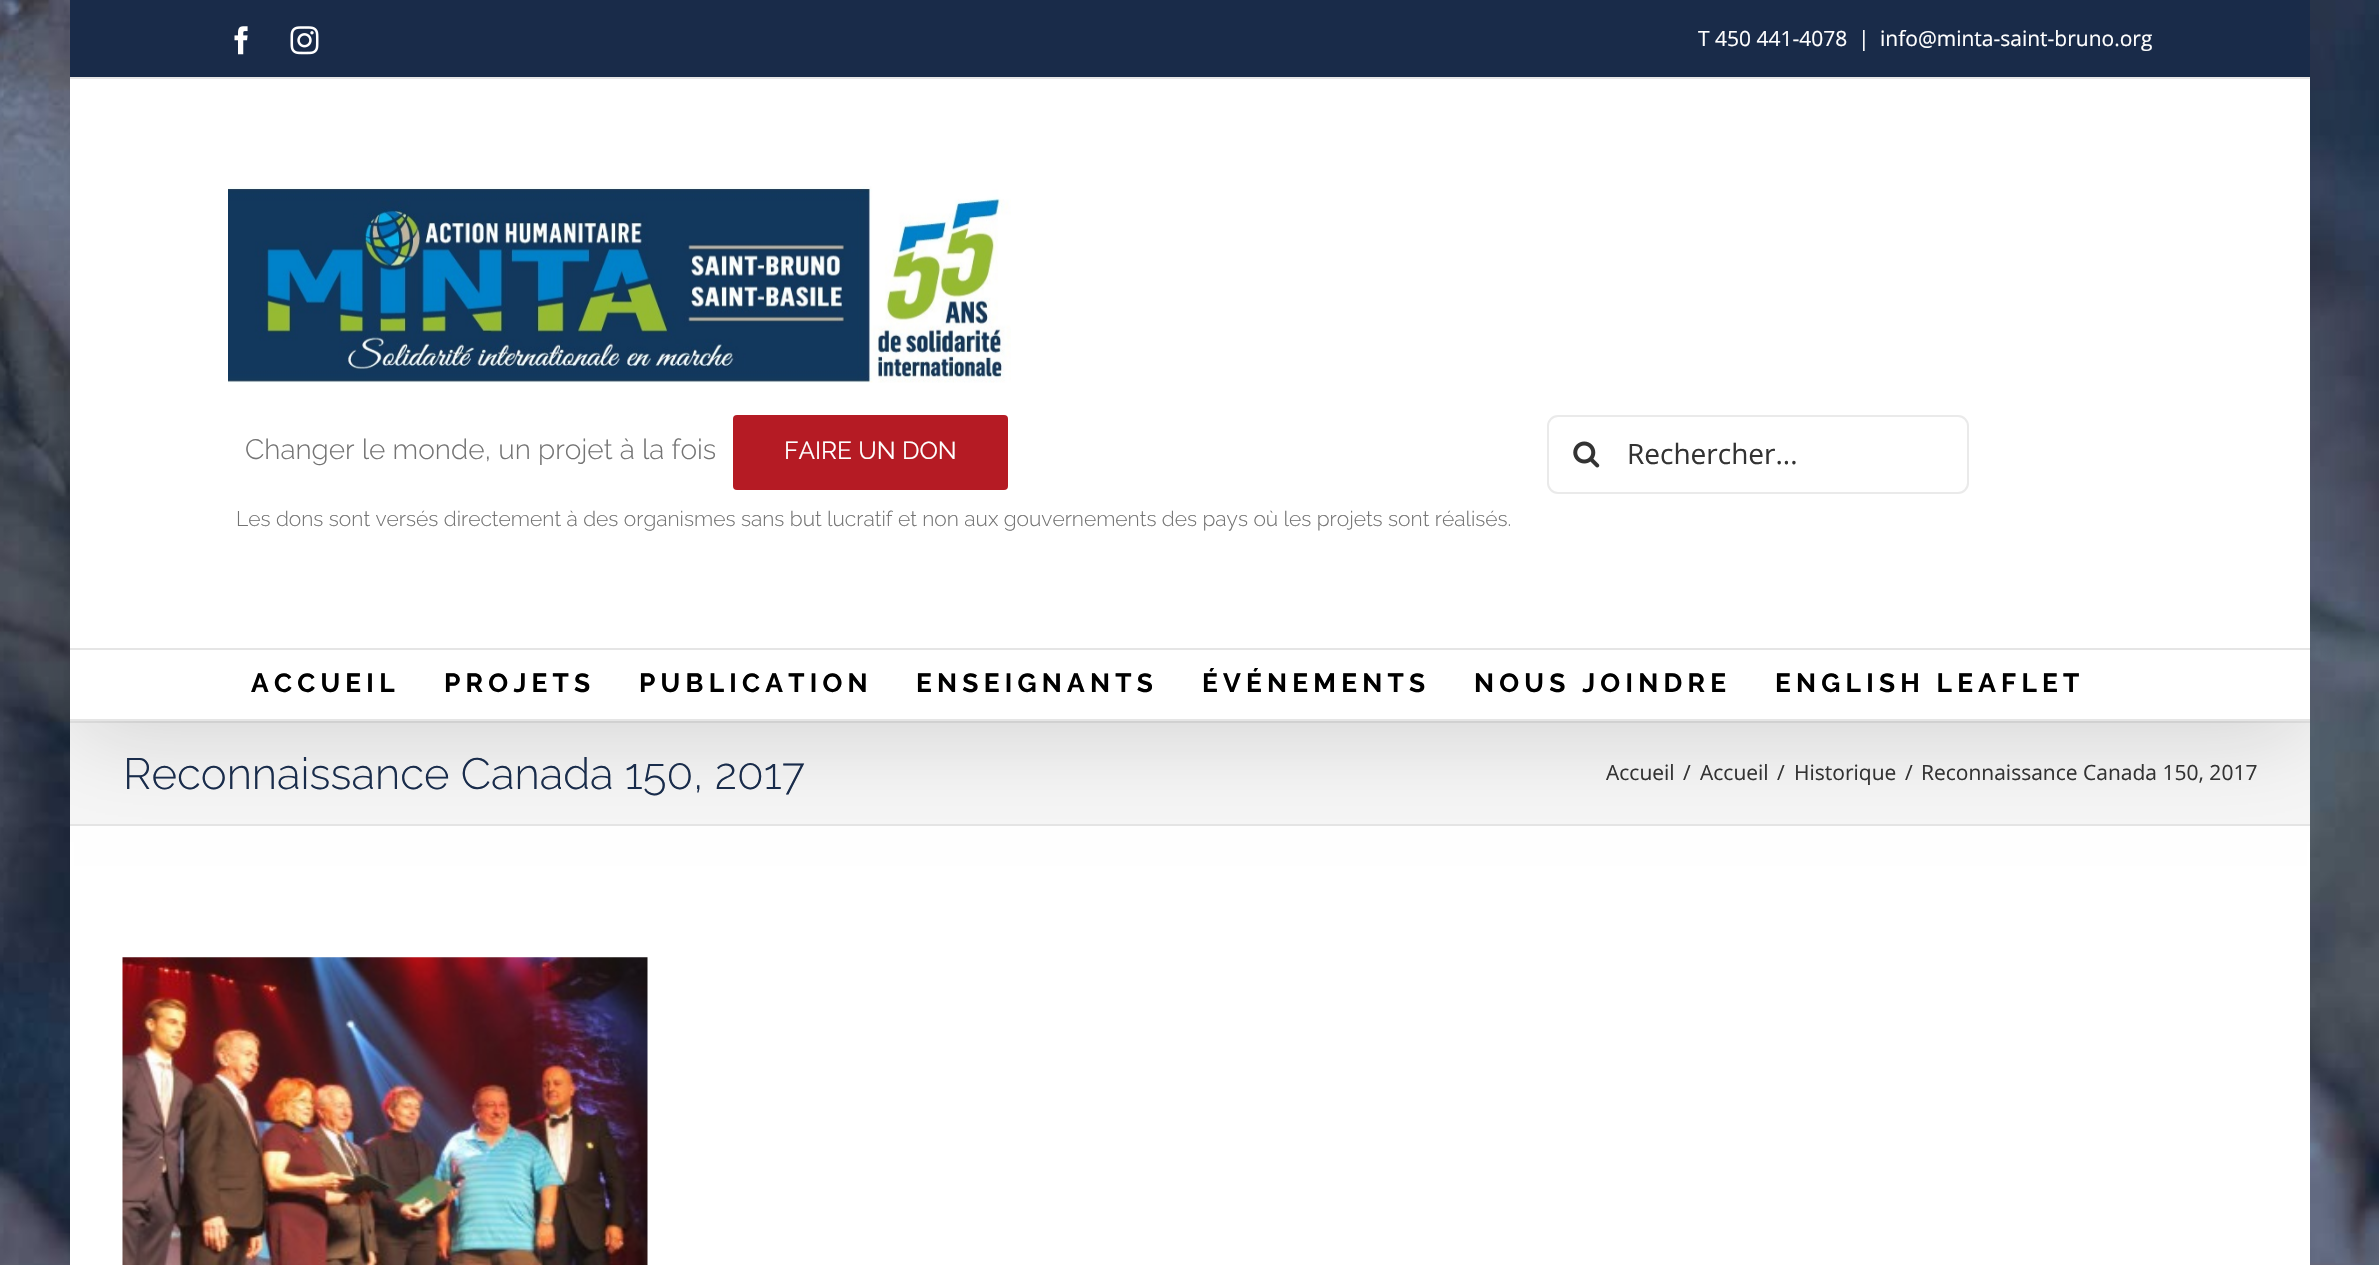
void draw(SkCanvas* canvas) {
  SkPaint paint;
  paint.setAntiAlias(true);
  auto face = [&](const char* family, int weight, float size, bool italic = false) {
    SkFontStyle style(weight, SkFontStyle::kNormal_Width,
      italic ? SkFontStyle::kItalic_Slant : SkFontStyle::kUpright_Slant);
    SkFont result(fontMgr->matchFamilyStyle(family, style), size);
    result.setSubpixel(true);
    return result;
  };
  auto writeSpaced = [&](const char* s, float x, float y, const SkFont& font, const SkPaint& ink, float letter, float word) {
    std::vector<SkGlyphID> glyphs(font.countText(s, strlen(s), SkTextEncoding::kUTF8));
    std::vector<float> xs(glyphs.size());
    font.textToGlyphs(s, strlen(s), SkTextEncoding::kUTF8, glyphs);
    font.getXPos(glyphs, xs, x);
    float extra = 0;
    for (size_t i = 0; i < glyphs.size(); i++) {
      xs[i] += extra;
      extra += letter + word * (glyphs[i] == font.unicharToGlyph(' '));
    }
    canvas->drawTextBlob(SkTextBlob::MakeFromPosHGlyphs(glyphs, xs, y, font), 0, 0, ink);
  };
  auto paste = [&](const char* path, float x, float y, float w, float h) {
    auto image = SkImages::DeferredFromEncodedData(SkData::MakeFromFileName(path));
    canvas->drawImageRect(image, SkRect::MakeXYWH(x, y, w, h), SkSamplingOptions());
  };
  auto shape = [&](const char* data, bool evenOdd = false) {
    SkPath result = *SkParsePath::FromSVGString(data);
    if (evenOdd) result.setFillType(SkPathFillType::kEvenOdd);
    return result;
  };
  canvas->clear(0xffffffff);
  paste("img/1.png", 0, 0, 2379, 1265);
  {
    const struct { float x, y, w, h; SkColor color; } items[] = {
      {70, 79, 2240, 1186, 0xffffffff},
      {70, 723, 2240, 101, 0xfff6f6f6},
      {70, 721, 2240, 2, 0xffe5e5e5},
      {70, 824, 2240, 2, 0xffe5e5e5},
    };
    for (auto [x, y, w, h, color] : items) {
      paint.setColor(color);
      canvas->drawRect(SkRect::MakeXYWH(x, y, w, h), paint);
    }
  }
  canvas->save();
  canvas->clipPath(shape("M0 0H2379V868H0ZM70 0H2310V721H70Z", true), true);
  paint.setColor(0x24000000);
  paint.setMaskFilter(SkMaskFilter::MakeBlur(kNormal_SkBlurStyle, 44));
  canvas->drawRect(SkRect::MakeXYWH(74, 21, 2233, 714), paint);
  paint.setMaskFilter(nullptr);
  canvas->restore();
  paint.setColor(0xff192b49);
  canvas->drawRect(SkRect::MakeXYWH(70, 0, 2240, 77), paint);
  paint.setColor(0xffe5e5e5);
  canvas->drawRect(SkRect::MakeXYWH(70, 77, 2240, 2), paint);
  paste("img/2.png", 234, 26, 14, 29);
  paste("img/3.png", 290, 26, 29, 29);
  canvas->drawRect(SkRect::MakeXYWH(70, 648, 2240, 2), paint);
  paste("img/4.png", 228, 186, 783, 197);
  paint.setColor(0xffb51b24);
  canvas->drawRoundRect(SkRect::MakeXYWH(733, 415, 275, 75), 4, 4, paint);
  paint.setStroke(true);
  paint.setStrokeWidth(2);
  paint.setColor(0xffeaeaea);
  canvas->drawRoundRect(SkRect::MakeXYWH(1548, 416, 420, 77), 10, 10, paint);
  paste("img/5.png", 1573, 441, 27, 27);
  paint.setStroke(false);
  paint.setColor(0xffe5e5e5);
  canvas->drawRect(SkRect::MakeXYWH(70, 719, 2240, 2), paint);
  paste("img/6.png", 122, 957, 526, 308);
  auto f0 = face("Open Sans", 400, 21);
  paint.setColor(0xffffffff);
  {
    const struct { const char* s; float x, y; } items[] = {
      {"T 450 441-4078", 1698, 46},
      {"|", 1858, 46},
      {"info@minta-saint-bruno.org", 1880, 46},
    };
    for (auto [s, x, y] : items) {
      canvas->drawString(s, x, y, f0, paint);
    }
  }
  auto f1 = face("Raleway", 300, 28);
  paint.setColor(0xff747474);
  canvas->drawString("Changer le monde, un projet à la fois", 245, 459, f1, paint);
  auto f2 = face("Raleway", 400, 24.5f);
  paint.setColor(0xffffffff);
  canvas->drawString("FAIRE UN DON", 784, 459, f2, paint);
  auto f3 = face("Raleway", 300, 21);
  paint.setColor(0xff747474);
  canvas->drawString("Les dons sont versés directement à des organismes sans but lucratif et non aux gouvernements des pays où les projets sont réalisés.", 236, 526, f3, paint);
  auto f4 = face("Open Sans", 400, 28);
  paint.setColor(0xff333333);
  canvas->drawString("Rechercher...", 1627, 464, f4, paint);
  auto f5 = face("Raleway", 700, 26.25f);
  paint.setColor(0xff000000);
  {
    const struct { const char* s; float x, y; } items[] = {
      {"ACCUEIL", 251, 692},
      {"PROJETS", 444, 692},
      {"PUBLICATION", 639, 692},
      {"ENSEIGNANTS", 916, 692},
      {"ÉVÉNEMENTS", 1202, 692},
      {"NOUS JOINDRE", 1474, 692},
      {"ENGLISH LEAFLET", 1775, 692},
    };
    for (auto [s, x, y] : items) {
      writeSpaced(s, x, y, f5, paint, 5.25f, 0);
    }
  }
  auto f6 = face("Raleway", 300, 43.75f);
  paint.setColor(0xff192c4b);
  canvas->drawString("Reconnaissance Canada 150, 2017", 123, 789, f6, paint);
  paint.setColor(0xff333333);
  {
    const struct { const char* s; float x, y; } items[] = {
      {"Accueil", 1606, 780},
      {"/", 1683, 780},
      {"Accueil", 1700, 780},
      {"/", 1777, 780},
      {"Historique", 1794, 780},
      {"/", 1905, 780},
      {"Reconnaissance Canada 150, 2017", 1921, 780},
    };
    for (auto [s, x, y] : items) {
      canvas->drawString(s, x, y, f0, paint);
    }
  }
}
